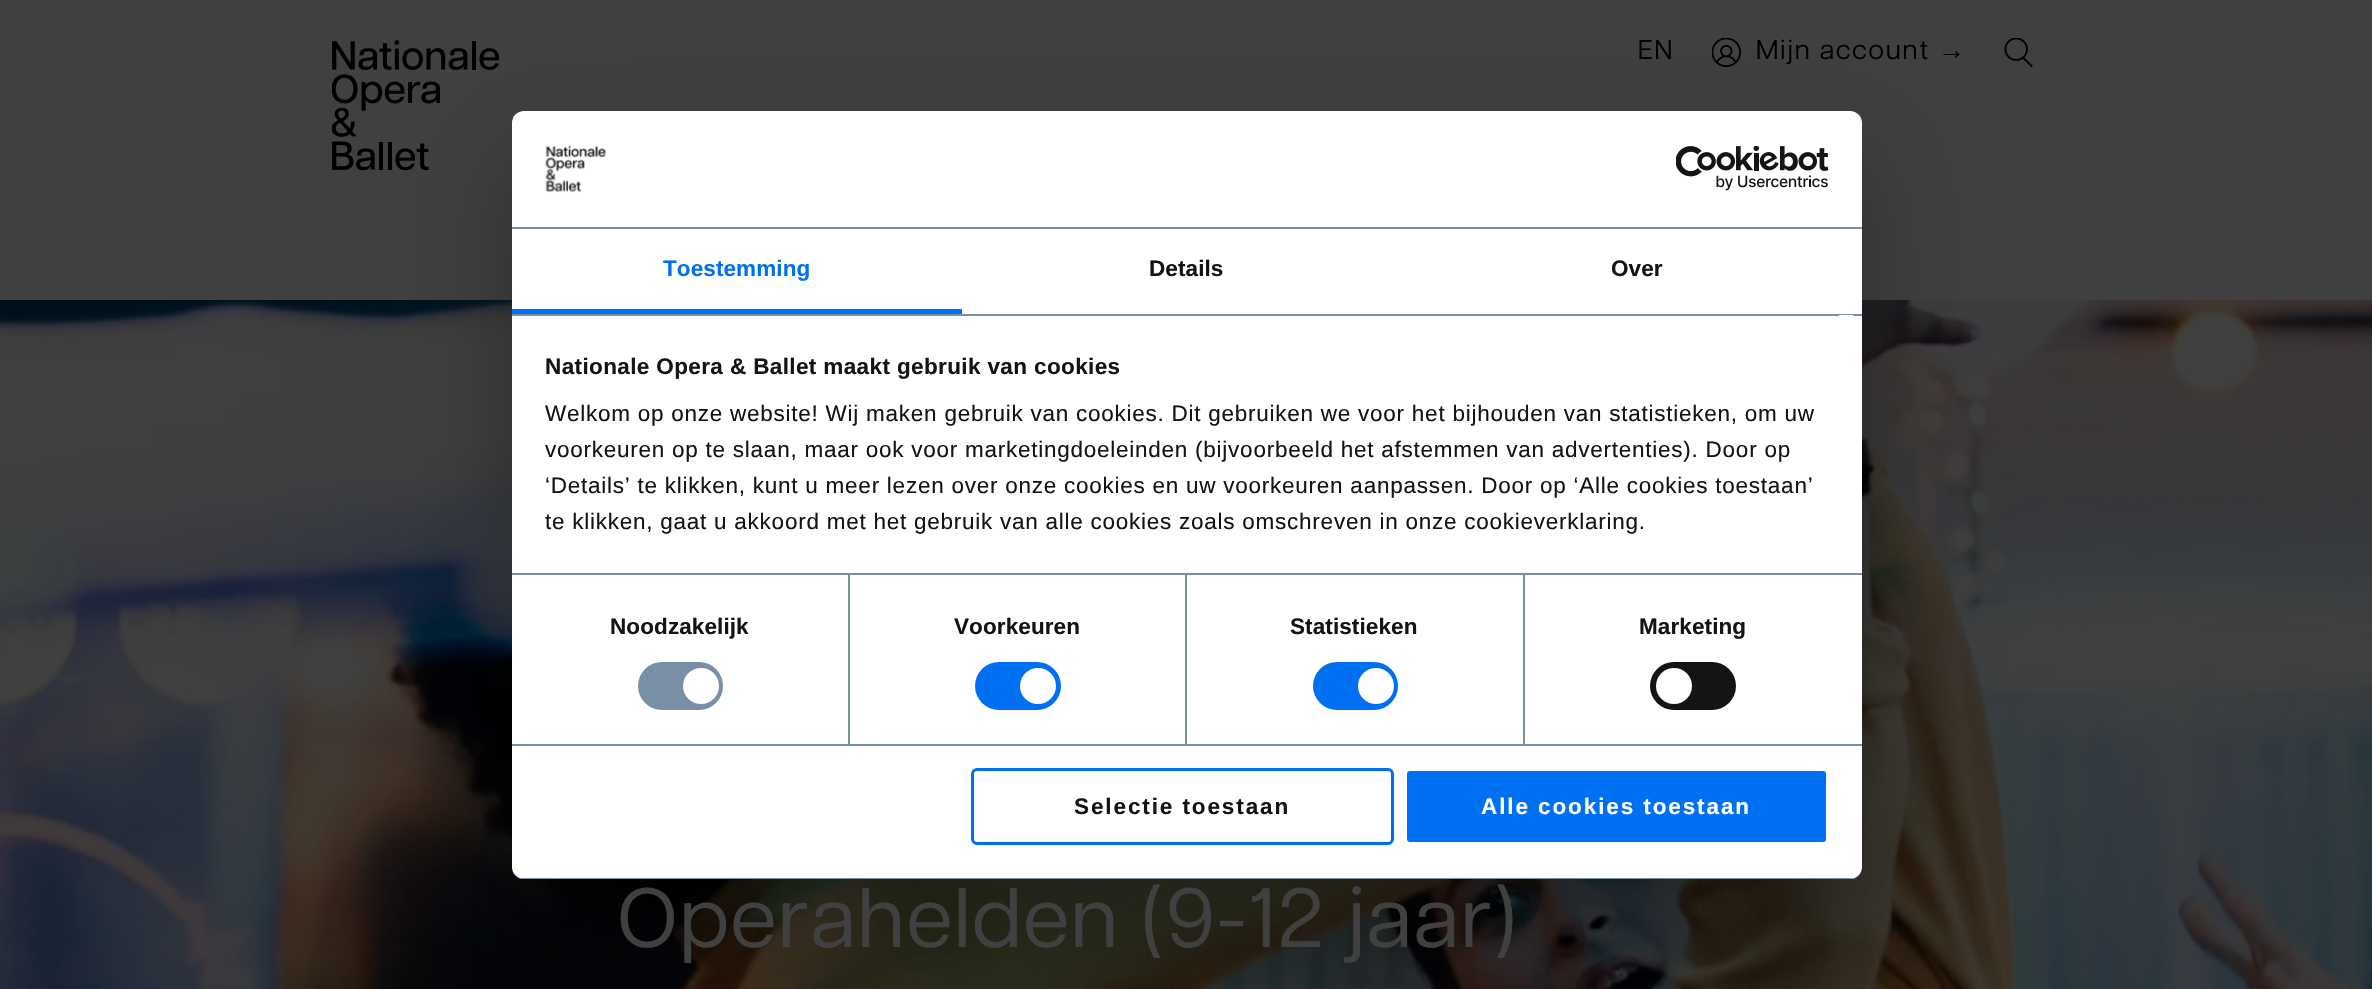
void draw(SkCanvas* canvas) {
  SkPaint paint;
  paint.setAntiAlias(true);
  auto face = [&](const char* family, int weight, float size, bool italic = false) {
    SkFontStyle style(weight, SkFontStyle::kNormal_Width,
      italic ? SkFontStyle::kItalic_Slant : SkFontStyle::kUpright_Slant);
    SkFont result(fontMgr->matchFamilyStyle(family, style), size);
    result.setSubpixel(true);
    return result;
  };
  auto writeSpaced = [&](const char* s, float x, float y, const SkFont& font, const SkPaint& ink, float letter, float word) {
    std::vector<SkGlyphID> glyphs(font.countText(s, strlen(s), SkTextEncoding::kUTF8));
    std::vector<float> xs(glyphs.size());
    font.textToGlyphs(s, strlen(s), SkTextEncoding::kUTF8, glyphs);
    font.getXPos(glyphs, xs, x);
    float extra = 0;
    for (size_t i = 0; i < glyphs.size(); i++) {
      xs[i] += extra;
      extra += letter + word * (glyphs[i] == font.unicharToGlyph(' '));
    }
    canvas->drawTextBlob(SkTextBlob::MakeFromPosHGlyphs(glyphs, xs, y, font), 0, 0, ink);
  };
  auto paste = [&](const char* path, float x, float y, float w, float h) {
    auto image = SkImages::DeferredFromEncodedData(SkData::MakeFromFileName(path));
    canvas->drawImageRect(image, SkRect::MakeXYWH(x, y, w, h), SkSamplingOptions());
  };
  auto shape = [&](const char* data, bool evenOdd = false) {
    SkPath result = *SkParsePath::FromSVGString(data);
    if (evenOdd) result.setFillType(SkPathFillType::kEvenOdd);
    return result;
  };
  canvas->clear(0xff404040);
  paste("img/1.png", 332, 40, 168, 131);
  paste("img/2.png", 1712, 38, 29, 30);
  paste("img/3.png", 2004, 38, 29, 30);
  paste("img/4.png", 0, 300, 2372, 689);
  paint.setColor(0x4d000000);
  paint.setMaskFilter(SkMaskFilter::MakeBlur(kNormal_SkBlurStyle, 51));
  canvas->drawRoundRect(SkRect::MakeXYWH(512, 159, 1350, 768), 12, 12, paint);
  paint.setMaskFilter(nullptr);
  paint.setColor(0xffffffff);
  canvas->drawRoundRect(SkRect::MakeXYWH(512, 111, 1350, 768), 12, 12, paint);
  paint.setColor(0xff788fa6);
  canvas->drawRect(SkRect::MakeXYWH(512, 227, 1350, 2), paint);
  paste("img/5.png", 545, 145, 61, 48);
  paste("img/6.png", 1676, 146, 153, 45);
  {
    const struct { float x, y, w, h; SkColor color; } items[] = {
      {512, 314, 1350, 2, 0xff788fa6},
      {512, 309, 450, 5, 0xff0070f2},
      {512, 573, 1350, 2, 0xff788fa6},
      {1839, 315, 14, 1, 0xffffffff},
      {512, 744, 1350, 2, 0xff788fa6},
      {848, 575, 2, 169, 0xff788fa6},
    };
    for (auto [x, y, w, h, color] : items) {
      paint.setColor(color);
      canvas->drawRect(SkRect::MakeXYWH(x, y, w, h), paint);
    }
  }
  canvas->drawRoundRect(SkRect::MakeXYWH(638, 662, 85, 48), 24, 24, paint);
  paint.setColor(0xffffffff);
  canvas->drawCircle(701, 686, 18, paint);
  paint.setColor(0xff788fa6);
  canvas->drawRect(SkRect::MakeXYWH(1185, 575, 2, 169), paint);
  paint.setColor(0xff0070f2);
  canvas->drawRoundRect(SkRect::MakeXYWH(975, 662, 86, 48), 24, 24, paint);
  paint.setColor(0xffffffff);
  canvas->drawCircle(1038, 686, 18, paint);
  paint.setColor(0xff788fa6);
  canvas->drawRect(SkRect::MakeXYWH(1523, 575, 2, 169), paint);
  paint.setColor(0xff0070f2);
  canvas->drawRoundRect(SkRect::MakeXYWH(1313, 662, 85, 48), 24, 24, paint);
  paint.setColor(0xffffffff);
  canvas->drawCircle(1376, 686, 18, paint);
  paint.setColor(0xff141414);
  canvas->drawRoundRect(SkRect::MakeXYWH(1650, 662, 86, 48), 24, 24, paint);
  paint.setColor(0xffffffff);
  canvas->drawCircle(1674, 686, 18, paint);
  canvas->save();
  canvas->clipPath(shape("M524 111H1850C1856.5 111 1862 116.5 1862 123V867C1862 873.5 1856.5 879 1850 879H524C517.5 879 512 873.5 512 867V123C512 116.5 517.5 111 524 111Z"), true);
  paint.setColor(0xff788fa6);
  canvas->drawRect(SkRect::MakeXYWH(512, 878, 1350, 1), paint);
  canvas->restore();
  paint.setStroke(true);
  paint.setStrokeWidth(3);
  paint.setColor(0xff0070f2);
  canvas->drawRoundRect(SkRect::MakeXYWH(972.5f, 769.5f, 420, 74), 4.5f, 4.5f, paint);
  paint.setStroke(false);
  canvas->drawRoundRect(SkRect::MakeXYWH(1405.5f, 769.5f, 422, 74), 4.5f, 4.5f, paint);
  paint.setStroke(true);
  paint.setColor(0xffffffff);
  canvas->drawRoundRect(SkRect::MakeXYWH(1405.5f, 769.5f, 422, 74), 4.5f, 4.5f, paint);
  auto f0 = face("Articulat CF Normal", 400, 27);
  paint.setStroke(false);
  paint.setColor(0xff000000);
  writeSpaced("EN", 1638, 59, f0, paint, 1.9f, 0);
  writeSpaced("Mijn account", 1756, 59, f0, paint, 1.9f, 0);
  auto f1 = face("Liberation Sans", 400, 27);
  writeSpaced("→", 1938, 59, f1, paint, 1.9f, 0);
  auto f2 = face("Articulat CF", 400, 84);
  paint.setColor(0xff404040);
  writeSpaced("Operahelden (9-12 jaar)", 617, 947, f2, paint, 1.9f, 0);
  auto f3 = face("Liberation Sans", 700, 22.5f);
  paint.setColor(0xff0070f2);
  writeSpaced("Toestemming", 663, 276, f3, paint, 0.1f, 0);
  paint.setColor(0xff141414);
  writeSpaced("Details", 1149, 276, f3, paint, 0.1f, 0);
  writeSpaced("Over", 1611, 276, f3, paint, 0.1f, 0);
  writeSpaced("Nationale Opera & Ballet maakt gebruik van cookies", 545, 374, f3, paint, 0.38f, 0);
  auto f4 = face("Liberation Sans", 400, 22.5f);
  {
    const struct { const char* s; float x, y; } items[] = {
      {"Welkom op onze website! Wij maken gebruik van cookies. Dit gebruiken we voor het bijhouden van statistieken, om uw", 545, 421},
      {"voorkeuren op te slaan, maar ook voor marketingdoeleinden (bijvoorbeeld het afstemmen van advertenties). Door op", 545, 457},
      {"‘Details’ te klikken, kunt u meer lezen over onze cookies en uw voorkeuren aanpassen. Door op ‘Alle cookies toestaan’", 545, 493},
      {"te klikken, gaat u akkoord met het gebruik van alle cookies zoals omschreven in onze cookieverklaring.", 545, 529},
    };
    for (auto [s, x, y] : items) {
      writeSpaced(s, x, y, f4, paint, 0.75f, 0);
    }
  }
  {
    const struct { const char* s; float x, y; } items[] = {
      {"Noodzakelijk", 610, 634},
      {"Voorkeuren", 954, 634},
      {"Statistieken", 1290, 634},
      {"Marketing", 1639, 634},
    };
    for (auto [s, x, y] : items) {
      writeSpaced(s, x, y, f3, paint, 0.1f, 0);
    }
  }
  writeSpaced("Selectie toestaan", 1074, 814, f3, paint, 1.9f, 0);
  paint.setColor(0xffffffff);
  writeSpaced("Alle cookies toestaan", 1481, 814, f3, paint, 1.9f, 0);
}
